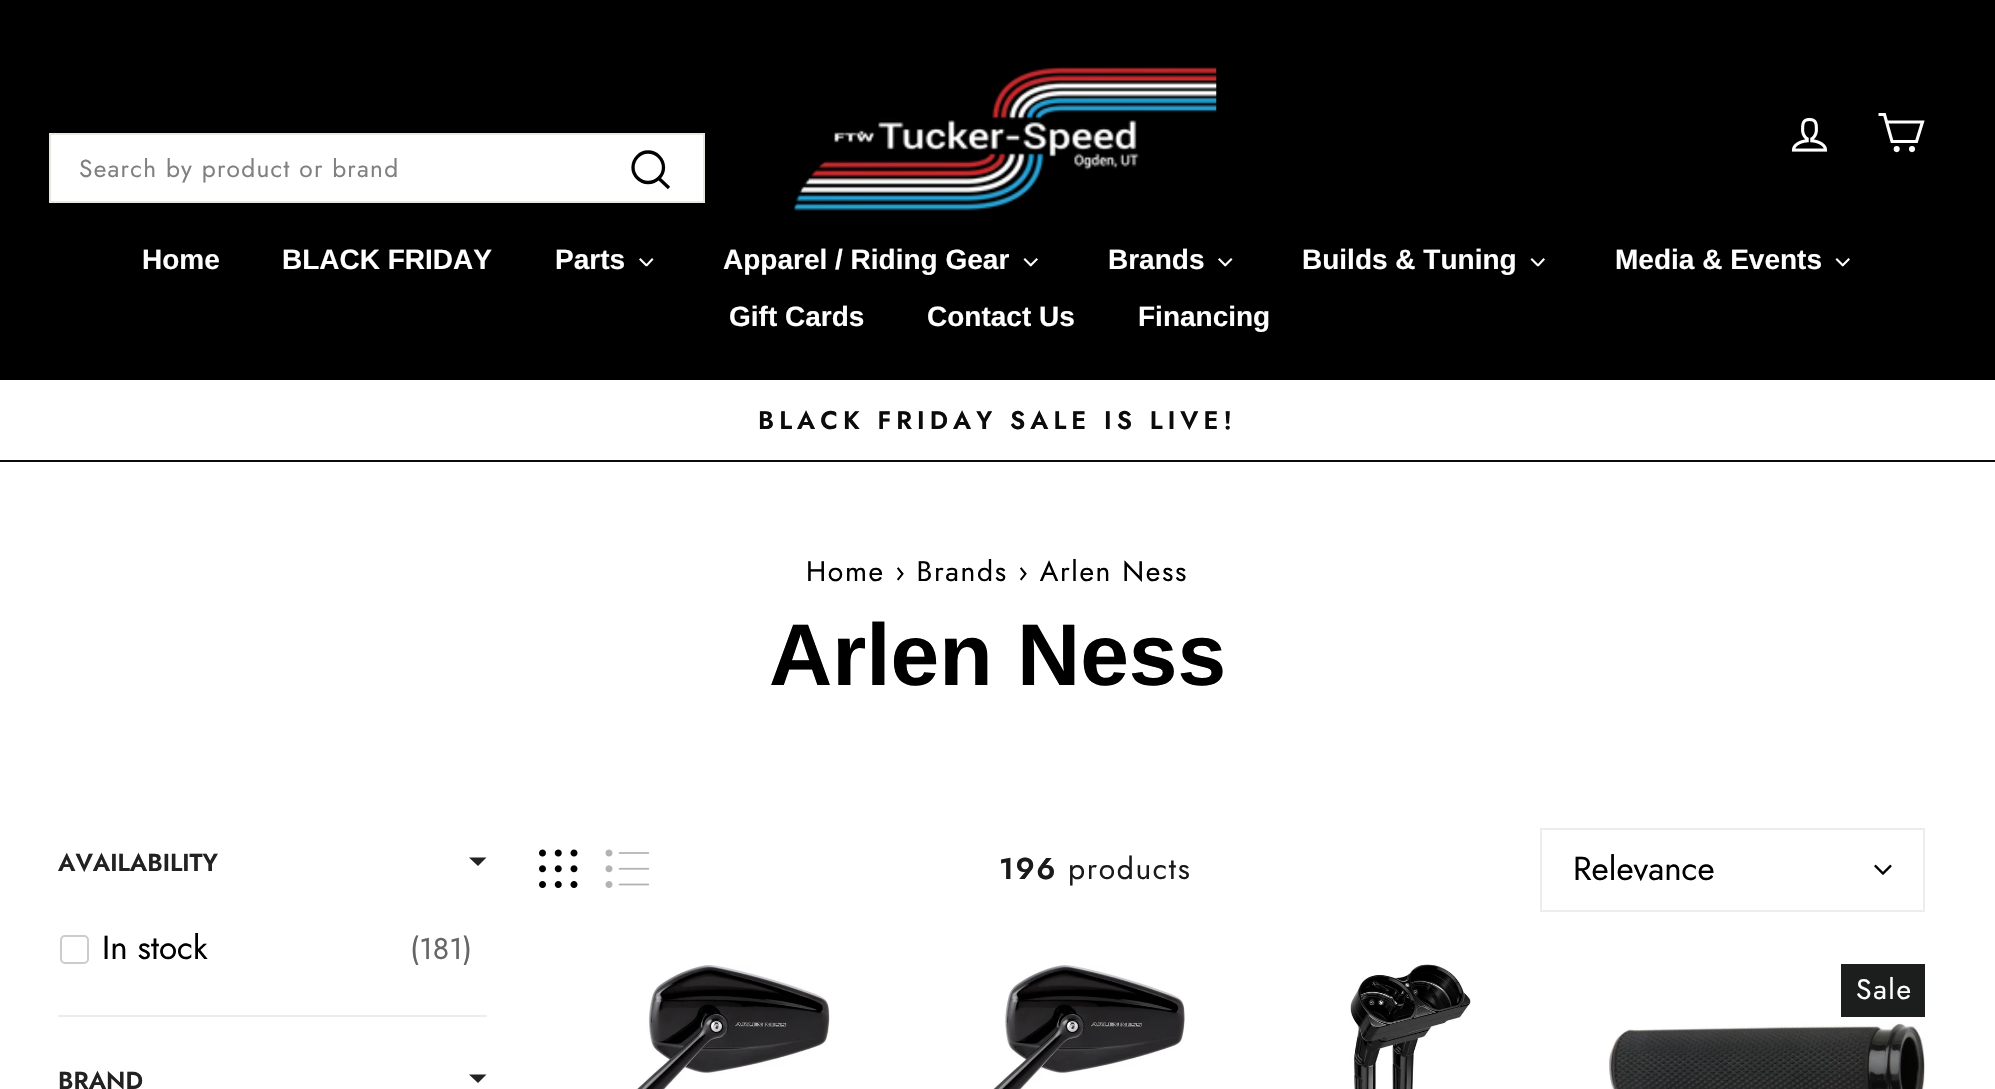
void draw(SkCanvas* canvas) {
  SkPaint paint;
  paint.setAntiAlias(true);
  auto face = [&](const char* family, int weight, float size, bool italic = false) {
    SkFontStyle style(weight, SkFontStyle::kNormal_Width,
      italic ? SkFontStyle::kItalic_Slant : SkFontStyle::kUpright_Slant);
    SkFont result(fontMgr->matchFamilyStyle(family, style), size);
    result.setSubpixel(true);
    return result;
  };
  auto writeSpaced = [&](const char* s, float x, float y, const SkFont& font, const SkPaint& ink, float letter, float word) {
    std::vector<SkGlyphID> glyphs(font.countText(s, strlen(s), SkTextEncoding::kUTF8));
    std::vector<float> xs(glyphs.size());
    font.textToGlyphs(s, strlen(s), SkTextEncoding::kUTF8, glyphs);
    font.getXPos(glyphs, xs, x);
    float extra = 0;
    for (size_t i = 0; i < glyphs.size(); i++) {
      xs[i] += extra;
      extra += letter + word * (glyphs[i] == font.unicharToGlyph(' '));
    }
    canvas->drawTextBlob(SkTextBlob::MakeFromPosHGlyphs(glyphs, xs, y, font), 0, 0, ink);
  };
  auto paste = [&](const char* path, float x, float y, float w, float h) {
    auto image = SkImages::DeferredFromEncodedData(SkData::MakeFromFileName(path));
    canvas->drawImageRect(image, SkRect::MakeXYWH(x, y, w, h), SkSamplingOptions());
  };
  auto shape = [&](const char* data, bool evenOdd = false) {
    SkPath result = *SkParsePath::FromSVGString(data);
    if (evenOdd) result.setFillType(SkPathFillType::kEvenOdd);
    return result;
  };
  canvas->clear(0xffffffff);
  paint.setColor(0xff000000);
  canvas->drawRect(SkRect::MakeXYWH(0, 0, 1995, 380), paint);
  paste("img/1.png", 794, 66, 423, 145);
  paste("img/2.png", 1791, 117, 37, 35);
  paint.setStroke(true);
  paint.setStrokeWidth(3.1f);
  paint.setColor(0xffffffff);
  canvas->drawPath(shape("M1886.5 122H1922.5L1916.5 141.5H1892L1884.5 114.5H1878.5"), paint);
  canvas->drawCircle(1896.7f, 149.1f, 1.5f, paint);
  canvas->drawCircle(1912, 149.1f, 1.5f, paint);
  paint.setStroke(false);
  canvas->drawRect(SkRect::MakeXYWH(50, 134, 654, 68), paint);
  paint.setStroke(true);
  paint.setStrokeWidth(2);
  paint.setColor(0xffe8e8e1);
  canvas->drawRect(SkRect::MakeXYWH(50, 134, 654, 68), paint);
  paint.setStrokeWidth(3.3f);
  paint.setColor(0xff000000);
  canvas->drawPath(shape("M663.5 167.5C663.5 175.5 656.5 182.5 648 182.5C640 182.5 633 175.5 633 167.5C633 159 640 152 648 152C656.5 152 663.5 159 663.5 167.5ZM669 188L659 178.5"), paint);
  paint.setStroke(false);
  paint.setColor(0xffffffff);
  canvas->drawPath(shape("M652 258L653.5 259.5L647 266.5L645.5 265Z"), paint);
  canvas->drawPath(shape("M640.5 258L647.5 265L646 266.5L639 259.5Z"), paint);
  canvas->drawPath(shape("M1036.5 258L1038 259.5L1031 266.5L1029.5 265Z"), paint);
  canvas->drawPath(shape("M1025 258L1032 265L1030.5 266.5L1023.5 259.5Z"), paint);
  canvas->drawPath(shape("M1231 258L1232.5 259.5L1225.5 266.5L1224 265Z"), paint);
  canvas->drawPath(shape("M1219.5 258L1226.5 265L1225 266.5L1218 259.5Z"), paint);
  canvas->drawPath(shape("M1543.5 258L1545 259.5L1538.5 266.5L1537 265Z"), paint);
  canvas->drawPath(shape("M1532 258L1539 265L1537.5 266.5L1530.5 259.5Z"), paint);
  canvas->drawPath(shape("M1848.5 258L1850 259.5L1843 266.5L1841.5 265Z"), paint);
  canvas->drawPath(shape("M1837 258L1844 265L1842.5 266.5L1835.5 259.5Z"), paint);
  paint.setColor(0xff0d0c0c);
  canvas->drawRect(SkRect::MakeXYWH(0, 460, 1995, 2), paint);
  paint.setColor(0xffededed);
  canvas->drawRect(SkRect::MakeXYWH(58, 1015, 429, 2), paint);
  paint.setColor(0xff222222);
  canvas->drawPath(shape("M469 857.5H486.5L478 866Z"), paint);
  paint.setStroke(true);
  paint.setStrokeWidth(2);
  paint.setColor(0xffcccccc);
  canvas->drawRoundRect(SkRect::MakeXYWH(61, 936, 27, 27), 4, 4, paint);
  paint.setStroke(false);
  paint.setColor(0xff222222);
  canvas->drawPath(shape("M469 1074.5H486.5L478 1083Z"), paint);
  paste("img/3.png", 539, 849, 39, 39);
  paste("img/4.png", 605, 849, 45, 39);
  paint.setStroke(true);
  paint.setColor(0xffededed);
  canvas->drawRect(SkRect::MakeXYWH(1541, 829, 383, 82), paint);
  paste("img/5.png", 1874, 864, 18, 11);
  paste("img/6.png", 636, 965, 194, 124);
  paste("img/7.png", 993, 965, 192, 124);
  paste("img/8.png", 1350, 964, 121, 125);
  paint.setStroke(false);
  paint.setColor(0xff1c1d1d);
  canvas->drawRect(SkRect::MakeXYWH(1841, 964, 84, 53), paint);
  paste("img/9.png", 1609, 1022, 316, 67);
  auto f0 = face("Jost", 400, 24.5f);
  paint.setColor(0xff808080);
  writeSpaced("Search by product or brand", 79, 177, f0, paint, 1.25f, 0);
  auto f1 = face("Arimo", 700, 28);
  paint.setColor(0xffffffff);
  {
    const struct { const char* s; float x, y; } items[] = {
      {"Home", 142, 269},
      {"BLACK FRIDAY", 282, 269},
      {"Parts", 555, 269},
      {"Apparel / Riding Gear", 723, 269},
      {"Brands", 1108, 269},
      {"Builds & Tuning", 1302, 269},
      {"Media & Events", 1615, 269},
      {"Gift Cards", 729, 326},
      {"Contact Us", 927, 326},
      {"Financing", 1138, 326},
    };
    for (auto [s, x, y] : items) {
      canvas->drawString(s, x, y, f1, paint);
    }
  }
  auto f2 = face("Jost", 600, 25.4f);
  paint.setColor(0xff0d0c0c);
  writeSpaced("BLACK FRIDAY SALE IS LIVE!", 758, 429, f2, paint, 5.1f, 0);
  auto f3 = face("Jost", 400, 28.25f);
  paint.setColor(0xff000000);
  writeSpaced("Home › Brands › Arlen Ness", 806, 581, f3, paint, 1.65f, 0);
  auto f4 = face("Arimo", 700, 87.5f);
  canvas->drawString("Arlen Ness", 769, 685, f4, paint);
  auto f5 = face("Jost", 600, 24.5f);
  paint.setColor(0xff222222);
  canvas->drawString("AVAILABILITY", 58, 871, f5, paint);
  auto f6 = face("Jost", 400, 33.25f);
  paint.setColor(0xff000000);
  canvas->drawString("In stock", 102, 959, f6, paint);
  auto f7 = face("Jost", 400, 30);
  paint.setColor(0xff666666);
  canvas->drawString("(181)", 410, 959, f7, paint);
  paint.setColor(0xff222222);
  canvas->drawString("BRAND", 58, 1089, f5, paint);
  auto f8 = face("Jost", 600, 30);
  paint.setColor(0xff1a1a1a);
  writeSpaced("196", 999, 879, f8, paint, 1.65f, 0);
  writeSpaced("products", 1068, 879, f7, paint, 1.65f, 0);
  paint.setColor(0xff000000);
  canvas->drawString("Relevance", 1573, 880, f6, paint);
  paint.setColor(0xffffffff);
  writeSpaced("Sale", 1856, 999, f3, paint, 1.65f, 0);
}
